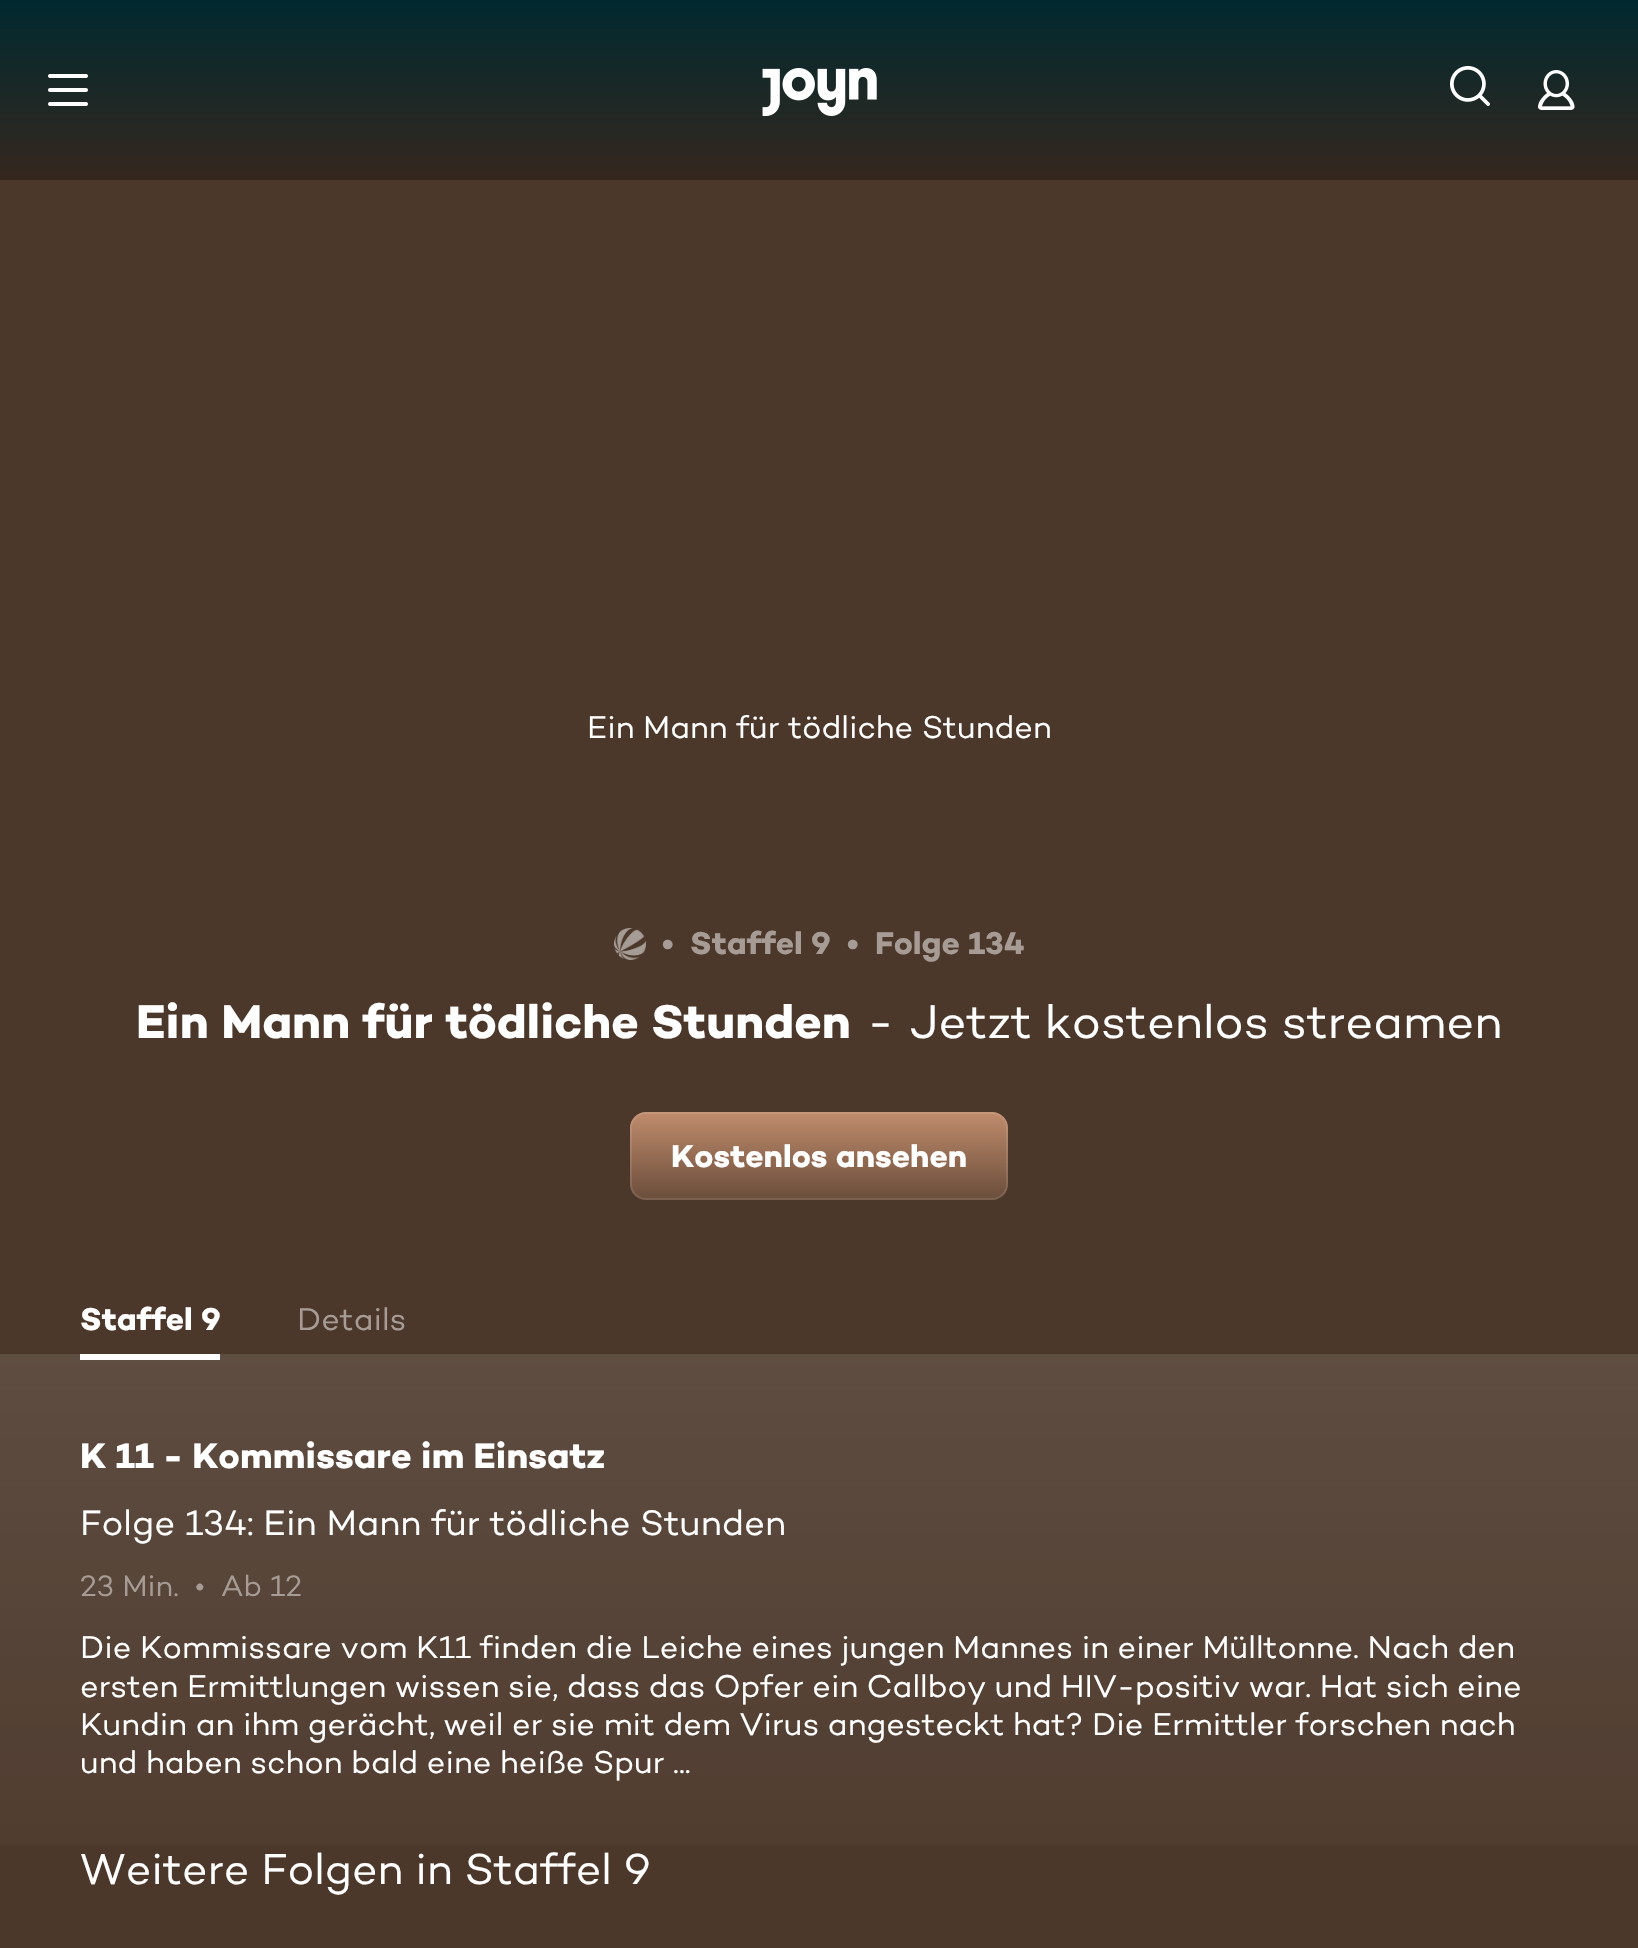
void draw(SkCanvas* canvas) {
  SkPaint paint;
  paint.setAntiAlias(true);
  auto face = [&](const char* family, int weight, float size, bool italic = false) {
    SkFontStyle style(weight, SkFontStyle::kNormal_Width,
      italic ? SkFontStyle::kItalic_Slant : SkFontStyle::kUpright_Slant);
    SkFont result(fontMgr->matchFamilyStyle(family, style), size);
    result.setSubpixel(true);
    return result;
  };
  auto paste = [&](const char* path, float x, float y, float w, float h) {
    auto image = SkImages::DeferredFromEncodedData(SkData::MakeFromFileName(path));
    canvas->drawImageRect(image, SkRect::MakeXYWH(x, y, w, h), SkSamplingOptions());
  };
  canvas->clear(0xff4c382b);
  {
    const SkColor colors[] = {0xff00292f, 0xff35271e};
    const float stops[] = {0, 1};
    const SkPoint ends[] = {{819, 0}, {819, 180}};
    paint.setShader(SkGradientShader::MakeLinear(ends, colors, stops, 2, SkTileMode::kClamp));
    paint.setAlpha(255);
  }
  canvas->drawRect(SkRect::MakeXYWH(0, 0, 1638, 180), paint);
  paste("img/1.png", 48, 74, 40, 32);
  paste("img/2.png", 762, 68, 115, 48);
  paste("img/3.png", 1450, 66, 40, 40);
  paste("img/4.png", 1538, 70, 37, 40);
  paste("img/5.png", 614, 928, 32, 32);
  {
    const SkColor colors[] = {0xffc08c6c, 0xff6a4d3b};
    const float stops[] = {0, 1};
    const SkPoint ends[] = {{819, 1112}, {819, 1200}};
    paint.setShader(SkGradientShader::MakeLinear(ends, colors, stops, 2, SkTileMode::kClamp));
    paint.setAlpha(255);
  }
  canvas->drawRoundRect(SkRect::MakeXYWH(630, 1112, 378, 88), 16, 16, paint);
  paint.setStroke(true);
  paint.setStrokeWidth(2);
  paint.setShader(nullptr);
  paint.setColor(0x1affffff);
  canvas->drawRoundRect(SkRect::MakeXYWH(631, 1113, 376, 86), 15, 15, paint);
  paint.setStroke(false);
  paint.setColor(0xffffffff);
  canvas->drawRect(SkRect::MakeXYWH(80, 1354, 140, 6), paint);
  {
    const SkColor colors[] = {0x00ffffff, 0x1affffff};
    const float stops[] = {0, 1};
    const SkPoint ends[] = {{819, 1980}, {819, 1354}};
    paint.setShader(SkGradientShader::MakeLinear(ends, colors, stops, 2, SkTileMode::kClamp));
    paint.setAlpha(255);
  }
  canvas->drawRect(SkRect::MakeXYWH(0, 1354, 1638, 491), paint);
  auto f0 = face("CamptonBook", 400, 32);
  paint.setShader(nullptr);
  paint.setColor(0xffffffff);
  canvas->drawString("Ein Mann für tödliche Stunden", 587, 738, f0, paint);
  auto f1 = face("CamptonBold", 700, 32);
  paint.setColor(0xffa69c95);
  {
    const struct { const char* s; float x, y; } items[] = {
      {"•", 662, 954},
      {"Staffel 9", 690, 954},
      {"•", 847, 954},
      {"Folge 134", 875, 954},
    };
    for (auto [s, x, y] : items) {
      canvas->drawString(s, x, y, f1, paint);
    }
  }
  auto f2 = face("CamptonBold", 700, 48);
  paint.setColor(0xffffffff);
  canvas->drawString("Ein Mann für tödliche Stunden", 136, 1038, f2, paint);
  auto f3 = face("CamptonBook", 400, 48);
  canvas->drawString("-", 867, 1038, f3, paint);
  canvas->drawString("Jetzt kostenlos streamen", 910, 1038, f3, paint);
  canvas->drawString("Kostenlos ansehen", 671, 1167, f1, paint);
  canvas->drawString("Staffel 9", 80, 1330, f1, paint);
  paint.setColor(0xffa69c95);
  canvas->drawString("Details", 297, 1330, f0, paint);
  auto f4 = face("CamptonBold", 700, 36);
  paint.setColor(0xffffffff);
  canvas->drawString("K 11 - Kommissare im Einsatz", 80, 1468, f4, paint);
  auto f5 = face("CamptonBook", 400, 36);
  canvas->drawString("Folge 134: Ein Mann für tödliche Stunden", 80, 1535, f5, paint);
  auto f6 = face("CamptonBook", 400, 30);
  paint.setColor(0xffa69c95);
  {
    const struct { const char* s; float x, y; } items[] = {
      {"23 Min.", 80, 1596},
      {"•", 195, 1596},
      {"Ab 12", 221, 1596},
    };
    for (auto [s, x, y] : items) {
      canvas->drawString(s, x, y, f6, paint);
    }
  }
  paint.setColor(0xffffffff);
  {
    const struct { const char* s; float x, y; } items[] = {
      {"Die Kommissare vom K11 finden die Leiche eines jungen Mannes in einer Mülltonne. Nach den", 80, 1658},
      {"ersten Ermittlungen wissen sie, dass das Opfer ein Callboy und HIV-positiv war. Hat sich eine", 80, 1697},
      {"Kundin an ihm gerächt, weil er sie mit dem Virus angesteckt hat? Die Ermittler forschen nach", 80, 1735},
      {"und haben schon bald eine heiße Spur ...", 80, 1773},
    };
    for (auto [s, x, y] : items) {
      canvas->drawString(s, x, y, f0, paint);
    }
  }
  auto f7 = face("CamptonBook", 400, 44);
  canvas->drawString("Weitere Folgen in Staffel 9", 80, 1884, f7, paint);
}
